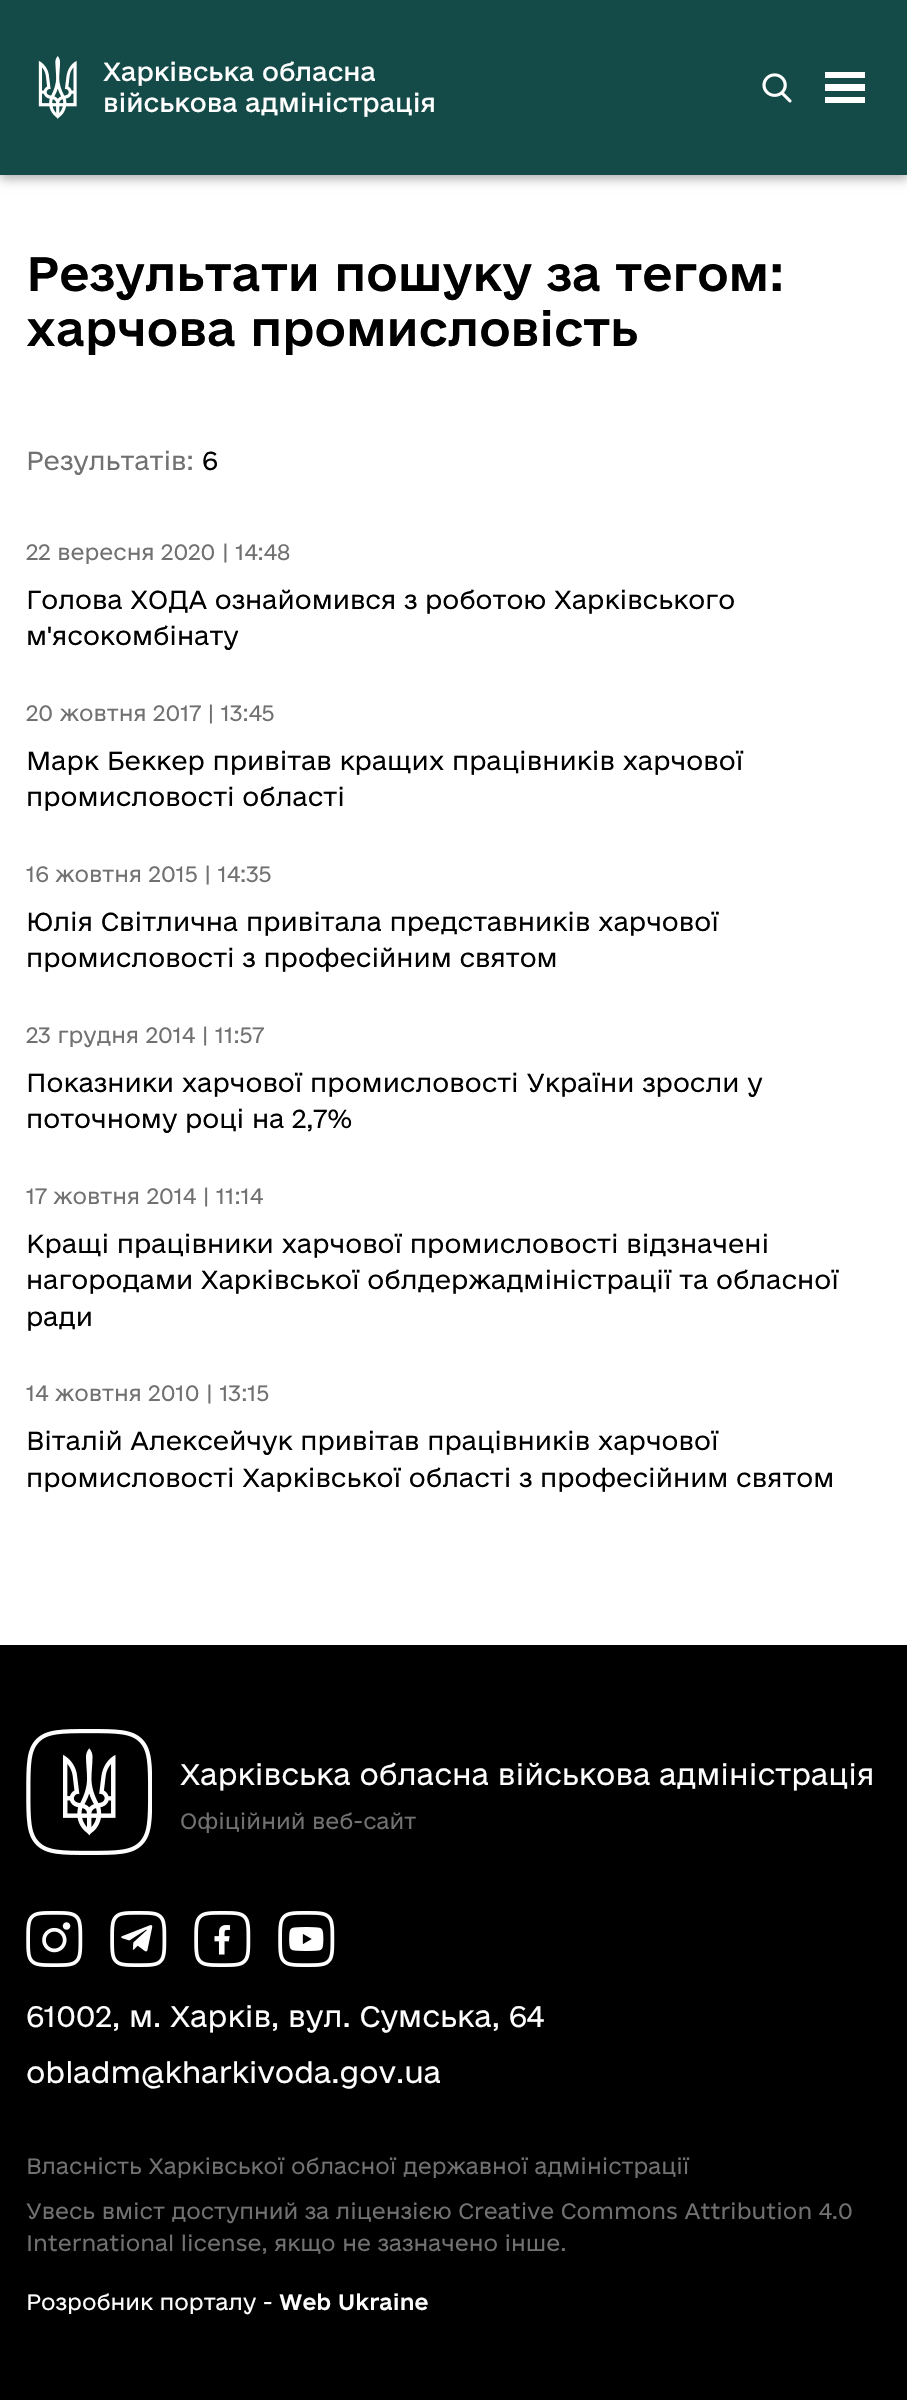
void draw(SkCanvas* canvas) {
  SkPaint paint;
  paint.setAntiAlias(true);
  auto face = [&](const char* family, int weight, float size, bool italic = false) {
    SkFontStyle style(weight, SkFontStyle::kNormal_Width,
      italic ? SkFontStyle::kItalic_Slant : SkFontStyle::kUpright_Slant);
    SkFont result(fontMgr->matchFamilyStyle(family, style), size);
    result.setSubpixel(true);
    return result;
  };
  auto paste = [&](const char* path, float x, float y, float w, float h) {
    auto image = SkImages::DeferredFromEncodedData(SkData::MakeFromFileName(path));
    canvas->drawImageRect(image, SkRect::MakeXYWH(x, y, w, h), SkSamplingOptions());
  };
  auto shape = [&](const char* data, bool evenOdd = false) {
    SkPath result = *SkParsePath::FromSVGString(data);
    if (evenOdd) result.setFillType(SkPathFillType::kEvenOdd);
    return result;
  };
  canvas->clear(0xffffffff);
  paint.setColor(0x4d000000);
  paint.setMaskFilter(SkMaskFilter::MakeBlur(kNormal_SkBlurStyle, 5));
  canvas->drawRect(SkRect::MakeXYWH(0, 4, 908, 175), paint);
  paint.setMaskFilter(nullptr);
  paint.setColor(0xff144b48);
  canvas->drawRect(SkRect::MakeXYWH(0, 0, 907, 175), paint);
  paste("img/1.png", 38, 56, 39, 63);
  paste("img/2.png", 762, 73, 30, 30);
  paint.setColor(0xffffffff);
  canvas->drawPath(shape("M825 72H865V78H825ZM825 84H865V91H825ZM825 97H865V103H825Z"), paint);
  paint.setColor(0xff000000);
  canvas->drawRect(SkRect::MakeXYWH(0, 1645, 907, 755), paint);
  paste("img/3.png", 26, 1729, 126, 126);
  paste("img/4.png", 26, 1911, 57, 56);
  paste("img/5.png", 110, 1911, 57, 56);
  paste("img/6.png", 194, 1911, 57, 56);
  paste("img/7.png", 278, 1911, 57, 56);
  auto f0 = face("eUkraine", 400, 24.5f);
  paint.setColor(0xffffffff);
  canvas->drawString("Харківська обласна", 103, 81, f0, paint);
  canvas->drawString("військова адміністрація", 103, 112, f0, paint);
  auto f1 = face("eUkraine", 500, 45.5f);
  paint.setColor(0xff000000);
  canvas->drawString("Результати пошуку за тегом:", 26, 291, f1, paint);
  canvas->drawString("харчова промисловість", 26, 346, f1, paint);
  auto f2 = face("eUkraine", 300, 24.5f);
  paint.setColor(0xff717171);
  canvas->drawString("Результатів:", 26, 470, f2, paint);
  paint.setColor(0xff000000);
  canvas->drawString("6", 202, 470, f2, paint);
  auto f3 = face("eUkraine", 300, 21);
  paint.setColor(0xff717171);
  canvas->drawString("22 вересня 2020 | 14:48", 26, 560, f3, paint);
  paint.setColor(0xff000000);
  canvas->drawString("Голова ХОДА ознайомився з роботою Харківського", 26, 609, f2, paint);
  canvas->drawString("м'ясокомбінату", 26, 645, f2, paint);
  paint.setColor(0xff717171);
  canvas->drawString("20 жовтня 2017 | 13:45", 26, 721, f3, paint);
  paint.setColor(0xff000000);
  canvas->drawString("Марк Беккер привітав кращих працівників харчової", 26, 770, f2, paint);
  canvas->drawString("промисловості області", 26, 806, f2, paint);
  paint.setColor(0xff717171);
  canvas->drawString("16 жовтня 2015 | 14:35", 26, 882, f3, paint);
  paint.setColor(0xff000000);
  canvas->drawString("Юлія Світлична привітала представників харчової", 26, 931, f2, paint);
  canvas->drawString("промисловості з професійним святом", 26, 967, f2, paint);
  paint.setColor(0xff717171);
  canvas->drawString("23 грудня 2014 | 11:57", 26, 1043, f3, paint);
  paint.setColor(0xff000000);
  canvas->drawString("Показники харчової промисловості України зросли у", 26, 1092, f2, paint);
  canvas->drawString("поточному році на 2,7%", 26, 1128, f2, paint);
  paint.setColor(0xff717171);
  canvas->drawString("17 жовтня 2014 | 11:14", 26, 1204, f3, paint);
  paint.setColor(0xff000000);
  {
    const struct { const char* s; float x, y; } items[] = {
      {"Кращі працівники харчової промисловості відзначені", 26, 1253},
      {"нагородами Харківської облдержадміністрації та обласної", 26, 1289},
      {"ради", 26, 1326},
    };
    for (auto [s, x, y] : items) {
      canvas->drawString(s, x, y, f2, paint);
    }
  }
  paint.setColor(0xff717171);
  canvas->drawString("14 жовтня 2010 | 13:15", 26, 1401, f3, paint);
  paint.setColor(0xff000000);
  canvas->drawString("Віталій Алексейчук привітав працівників харчової", 26, 1450, f2, paint);
  canvas->drawString("промисловості Харківської області з професійним святом", 26, 1487, f2, paint);
  auto f4 = face("eUkraine", 300, 28);
  paint.setColor(0xffffffff);
  canvas->drawString("Харківська обласна військова адміністрація", 180, 1785, f4, paint);
  paint.setColor(0xff717171);
  canvas->drawString("Офіційний веб-сайт", 180, 1829, f3, paint);
  paint.setColor(0xffffffff);
  canvas->drawString("61002, м. Харків, вул. Сумська, 64", 26, 2027, f4, paint);
  canvas->drawString("obladm@kharkivoda.gov.ua", 26, 2083, f4, paint);
  paint.setColor(0xff717171);
  {
    const struct { const char* s; float x, y; } items[] = {
      {"Власність Харківської обласної державної адміністрації", 26, 2174},
      {"Увесь вміст доступний за ліцензією Creative Commons Attribution 4.0", 26, 2219},
      {"International license, якщо не зазначено інше.", 26, 2251},
    };
    for (auto [s, x, y] : items) {
      canvas->drawString(s, x, y, f3, paint);
    }
  }
  paint.setColor(0xffffffff);
  canvas->drawString("Розробник порталу -", 26, 2310, f3, paint);
  auto f5 = face("eUkraine", 500, 21);
  canvas->drawString("Web Ukraine", 279, 2310, f5, paint);
}
